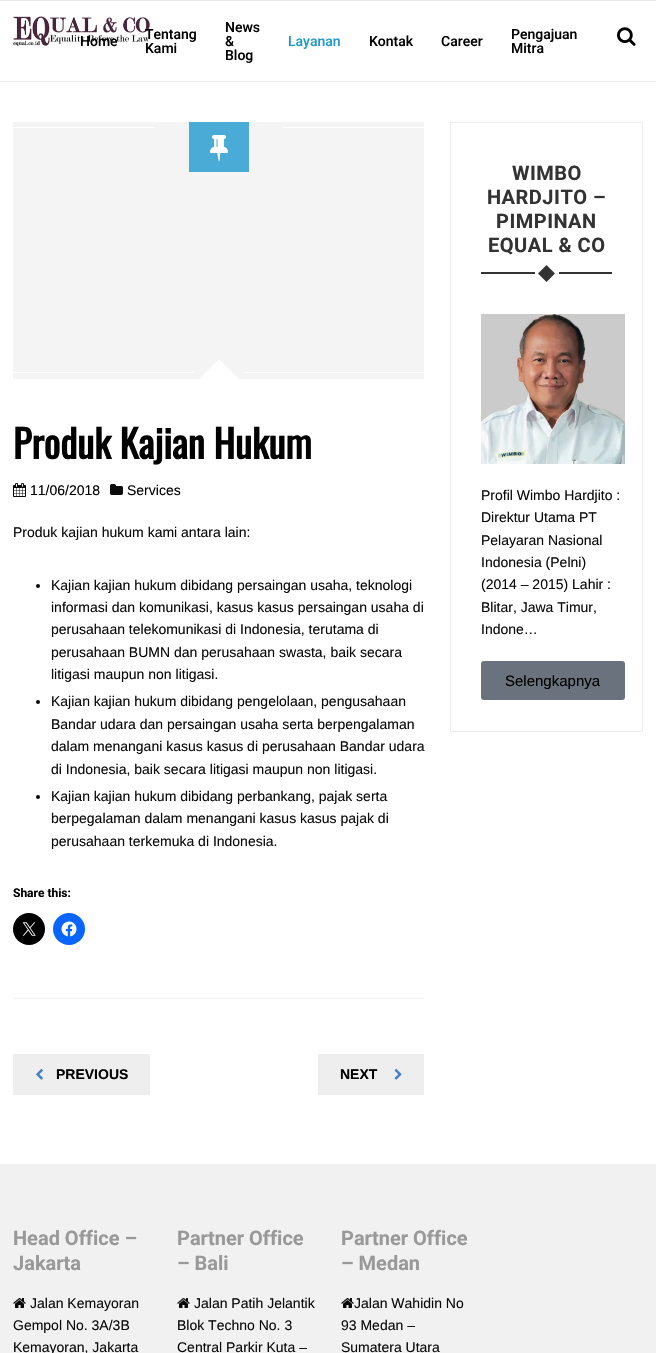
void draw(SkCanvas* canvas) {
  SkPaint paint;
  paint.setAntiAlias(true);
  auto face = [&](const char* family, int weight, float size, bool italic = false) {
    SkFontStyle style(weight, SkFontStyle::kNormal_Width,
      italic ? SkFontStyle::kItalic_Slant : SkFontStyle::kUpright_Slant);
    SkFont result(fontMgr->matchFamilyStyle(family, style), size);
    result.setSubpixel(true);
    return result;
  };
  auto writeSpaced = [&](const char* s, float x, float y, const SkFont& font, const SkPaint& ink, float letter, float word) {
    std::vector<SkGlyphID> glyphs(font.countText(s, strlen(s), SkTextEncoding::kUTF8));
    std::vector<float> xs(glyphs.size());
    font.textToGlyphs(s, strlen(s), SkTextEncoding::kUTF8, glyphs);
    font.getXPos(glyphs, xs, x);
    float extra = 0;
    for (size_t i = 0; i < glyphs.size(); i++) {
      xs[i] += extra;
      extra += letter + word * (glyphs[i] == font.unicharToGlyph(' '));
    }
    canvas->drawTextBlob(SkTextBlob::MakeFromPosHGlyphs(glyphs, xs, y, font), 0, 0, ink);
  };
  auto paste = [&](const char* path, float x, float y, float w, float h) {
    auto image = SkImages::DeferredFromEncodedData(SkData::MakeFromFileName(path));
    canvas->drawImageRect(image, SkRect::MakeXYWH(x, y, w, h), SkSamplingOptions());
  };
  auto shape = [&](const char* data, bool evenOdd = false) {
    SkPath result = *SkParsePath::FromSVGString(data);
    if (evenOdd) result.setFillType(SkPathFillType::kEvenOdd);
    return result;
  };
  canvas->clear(0xffffffff);
  paint.setColor(0xffececec);
  canvas->drawRect(SkRect::MakeXYWH(0, 81, 656, 1), paint);
  paint.setColor(0xffe9e7e7);
  canvas->drawRect(SkRect::MakeXYWH(0, 0, 656, 1), paint);
  paste("img/1.png", 13, 16, 137, 30);
  paste("img/2.png", 617, 27, 19, 19);
  {
    const struct { float x, y, w, h; SkColor color; } items[] = {
      {13, 998, 411, 1, 0xfff1f1f1},
      {13, 122, 411, 257, 0xfff4f4f4},
      {189, 122, 60, 50, 0xff49abd6},
    };
    for (auto [x, y, w, h, color] : items) {
      paint.setColor(color);
      canvas->drawRect(SkRect::MakeXYWH(x, y, w, h), paint);
    }
  }
  paste("img/3.png", 210, 135, 18, 26);
  paint.setColor(0xffffffff);
  canvas->drawRect(SkRect::MakeXYWH(13, 127, 142, 1), paint);
  canvas->drawRect(SkRect::MakeXYWH(283, 127, 141, 1), paint);
  canvas->drawPath(shape("M239 379H199L219 359Z"), paint);
  canvas->drawRect(SkRect::MakeXYWH(13, 372, 181, 1), paint);
  canvas->drawRect(SkRect::MakeXYWH(244, 372, 180, 1), paint);
  paste("img/4.png", 13, 483, 13, 14);
  paste("img/5.png", 110, 484, 13, 11);
  paint.setColor(0xff0a0a0a);
  canvas->drawCircle(38, 586, 2, paint);
  canvas->drawCircle(38, 702, 2, paint);
  canvas->drawCircle(38, 797, 2, paint);
  paint.setColor(0xff000000);
  canvas->drawCircle(29, 929, 16, paint);
  paste("img/6.png", 22, 922, 14, 14);
  paint.setColor(0xff0866ff);
  canvas->drawCircle(69, 929, 16, paint);
  paste("img/7.png", 61, 921, 16, 16);
  paint.setColor(0xffeeeeee);
  canvas->drawRect(SkRect::MakeXYWH(13, 1054, 137, 41), paint);
  paste("img/8.png", 36, 1068, 7, 12);
  canvas->drawRect(SkRect::MakeXYWH(318, 1054, 106, 41), paint);
  paste("img/9.png", 394, 1068, 8, 12);
  paint.setStroke(true);
  paint.setStrokeWidth(1);
  paint.setColor(0xffececec);
  canvas->drawRect(SkRect::MakeXYWH(450.5f, 122.5f, 192, 609), paint);
  paint.setStroke(false);
  paint.setColor(0xff333333);
  canvas->drawRect(SkRect::MakeXYWH(481, 272, 131, 2), paint);
  paint.setColor(0xffffffff);
  canvas->drawRect(SkRect::MakeXYWH(535, 272, 24, 2), paint);
  paint.setColor(0xff333333);
  canvas->drawPath(shape("M546.5 265L555 273.5L546.5 282L538 273.5Z"), paint);
  paste("img/10.png", 481, 314, 144, 150);
  paint.setColor(0xff69727d);
  canvas->drawRoundRect(SkRect::MakeXYWH(481, 661, 144, 39), 3, 3, paint);
  paint.setColor(0xfff1f1f1);
  canvas->drawRect(SkRect::MakeXYWH(0, 1164, 656, 189), paint);
  paste("img/11.png", 13, 1298, 13, 10);
  paste("img/11.png", 177, 1298, 13, 10);
  paste("img/11.png", 341, 1298, 13, 10);
  auto f0 = face("Roboto", 500, 14);
  paint.setColor(0xff000000);
  {
    const struct { const char* s; float x, y; } items[] = {
      {"Home", 80, 46},
      {"Tentang", 145, 39},
      {"Kami", 145, 53},
      {"News", 225, 32},
      {"&", 225, 46},
      {"Blog", 225, 60},
    };
    for (auto [s, x, y] : items) {
      canvas->drawString(s, x, y, f0, paint);
    }
  }
  paint.setColor(0xff1e99ce);
  canvas->drawString("Layanan", 288, 46, f0, paint);
  paint.setColor(0xff000000);
  {
    const struct { const char* s; float x, y; } items[] = {
      {"Kontak", 369, 46},
      {"Career", 441, 46},
      {"Pengajuan", 511, 39},
      {"Mitra", 511, 53},
    };
    for (auto [s, x, y] : items) {
      canvas->drawString(s, x, y, f0, paint);
    }
  }
  auto f1 = face("Oswald", 700, 38.5f);
  canvas->drawString("Produk Kajian Hukum", 13, 459, f1, paint);
  auto f2 = face("Liberation Sans", 400, 14);
  canvas->drawString("11/06/2018", 30, 495, f2, paint);
  canvas->drawString("Services", 127, 495, f2, paint);
  paint.setColor(0xff0a0a0a);
  {
    const struct { const char* s; float x, y; } items[] = {
      {"Produk kajian hukum kami antara lain:", 13, 537},
      {"Kajian kajian hukum dibidang persaingan usaha, teknologi", 51, 590},
      {"informasi dan komunikasi, kasus kasus persaingan usaha di", 51, 612},
      {"perusahaan telekomunikasi di Indonesia, terutama di", 51, 634},
      {"perusahaan BUMN dan perusahaan swasta, baik secara", 51, 657},
      {"litigasi maupun non litigasi.", 51, 679},
      {"Kajian kajian hukum dibidang pengelolaan, pengusahaan", 51, 706},
      {"Bandar udara dan persaingan usaha serta berpengalaman", 51, 729},
      {"dalam menangani kasus kasus di perusahaan Bandar udara", 51, 751},
      {"di Indonesia, baik secara litigasi maupun non litigasi.", 51, 774},
      {"Kajian kajian hukum dibidang perbankang, pajak serta", 51, 801},
      {"berpegalaman dalam menangani kasus kasus pajak di", 51, 823},
      {"perusahaan terkemuka di Indonesia.", 51, 846},
    };
    for (auto [s, x, y] : items) {
      canvas->drawString(s, x, y, f2, paint);
    }
  }
  auto f3 = face("Roboto", 700, 12);
  paint.setColor(0xff000000);
  canvas->drawString("Share this:", 13, 897, f3, paint);
  auto f4 = face("Liberation Sans", 700, 14);
  canvas->drawString("PREVIOUS", 56, 1079, f4, paint);
  canvas->drawString("NEXT", 340, 1079, f4, paint);
  auto f5 = face("Roboto", 700, 20);
  paint.setColor(0xff333333);
  {
    const struct { const char* s; float x, y; } items[] = {
      {"WIMBO", 512, 180},
      {"HARDJITO –", 487, 204},
      {"PIMPINAN", 496, 228},
      {"EQUAL & CO", 488, 252},
    };
    for (auto [s, x, y] : items) {
      writeSpaced(s, x, y, f5, paint, 0.5f, 0);
    }
  }
  paint.setColor(0xff0a0a0a);
  {
    const struct { const char* s; float x, y; } items[] = {
      {"Profil Wimbo Hardjito :", 481, 500},
      {"Direktur Utama PT", 481, 522},
      {"Pelayaran Nasional", 481, 545},
      {"Indonesia (Pelni)", 481, 567},
      {"(2014 – 2015) Lahir :", 481, 589},
      {"Blitar, Jawa Timur,", 481, 612},
      {"Indone…", 481, 634},
    };
    for (auto [s, x, y] : items) {
      canvas->drawString(s, x, y, f2, paint);
    }
  }
  auto f6 = face("Liberation Sans", 400, 15);
  paint.setColor(0xff000000);
  canvas->drawString("Selengkapnya", 505, 686, f6, paint);
  paint.setColor(0xff999999);
  canvas->drawString("Head Office –", 13, 1245, f5, paint);
  canvas->drawString("Jakarta", 13, 1270, f5, paint);
  paint.setColor(0xff0a0a0a);
  {
    const struct { const char* s; float x, y; } items[] = {
      {"Jalan Kemayoran", 30, 1308},
      {"Gempol No. 3A/3B", 13, 1330},
      {"Kemayoran, Jakarta", 13, 1352},
    };
    for (auto [s, x, y] : items) {
      canvas->drawString(s, x, y, f2, paint);
    }
  }
  paint.setColor(0xff999999);
  canvas->drawString("Partner Office", 177, 1245, f5, paint);
  canvas->drawString("– Bali", 177, 1270, f5, paint);
  paint.setColor(0xff0a0a0a);
  {
    const struct { const char* s; float x, y; } items[] = {
      {"Jalan Patih Jelantik", 194, 1308},
      {"Blok Techno No. 3", 177, 1330},
      {"Central Parkir Kuta –", 177, 1352},
    };
    for (auto [s, x, y] : items) {
      canvas->drawString(s, x, y, f2, paint);
    }
  }
  paint.setColor(0xff999999);
  canvas->drawString("Partner Office", 341, 1245, f5, paint);
  canvas->drawString("– Medan", 341, 1270, f5, paint);
  paint.setColor(0xff0a0a0a);
  {
    const struct { const char* s; float x, y; } items[] = {
      {"Jalan Wahidin No", 354, 1308},
      {"93 Medan –", 341, 1330},
      {"Sumatera Utara", 341, 1352},
    };
    for (auto [s, x, y] : items) {
      canvas->drawString(s, x, y, f2, paint);
    }
  }
}
